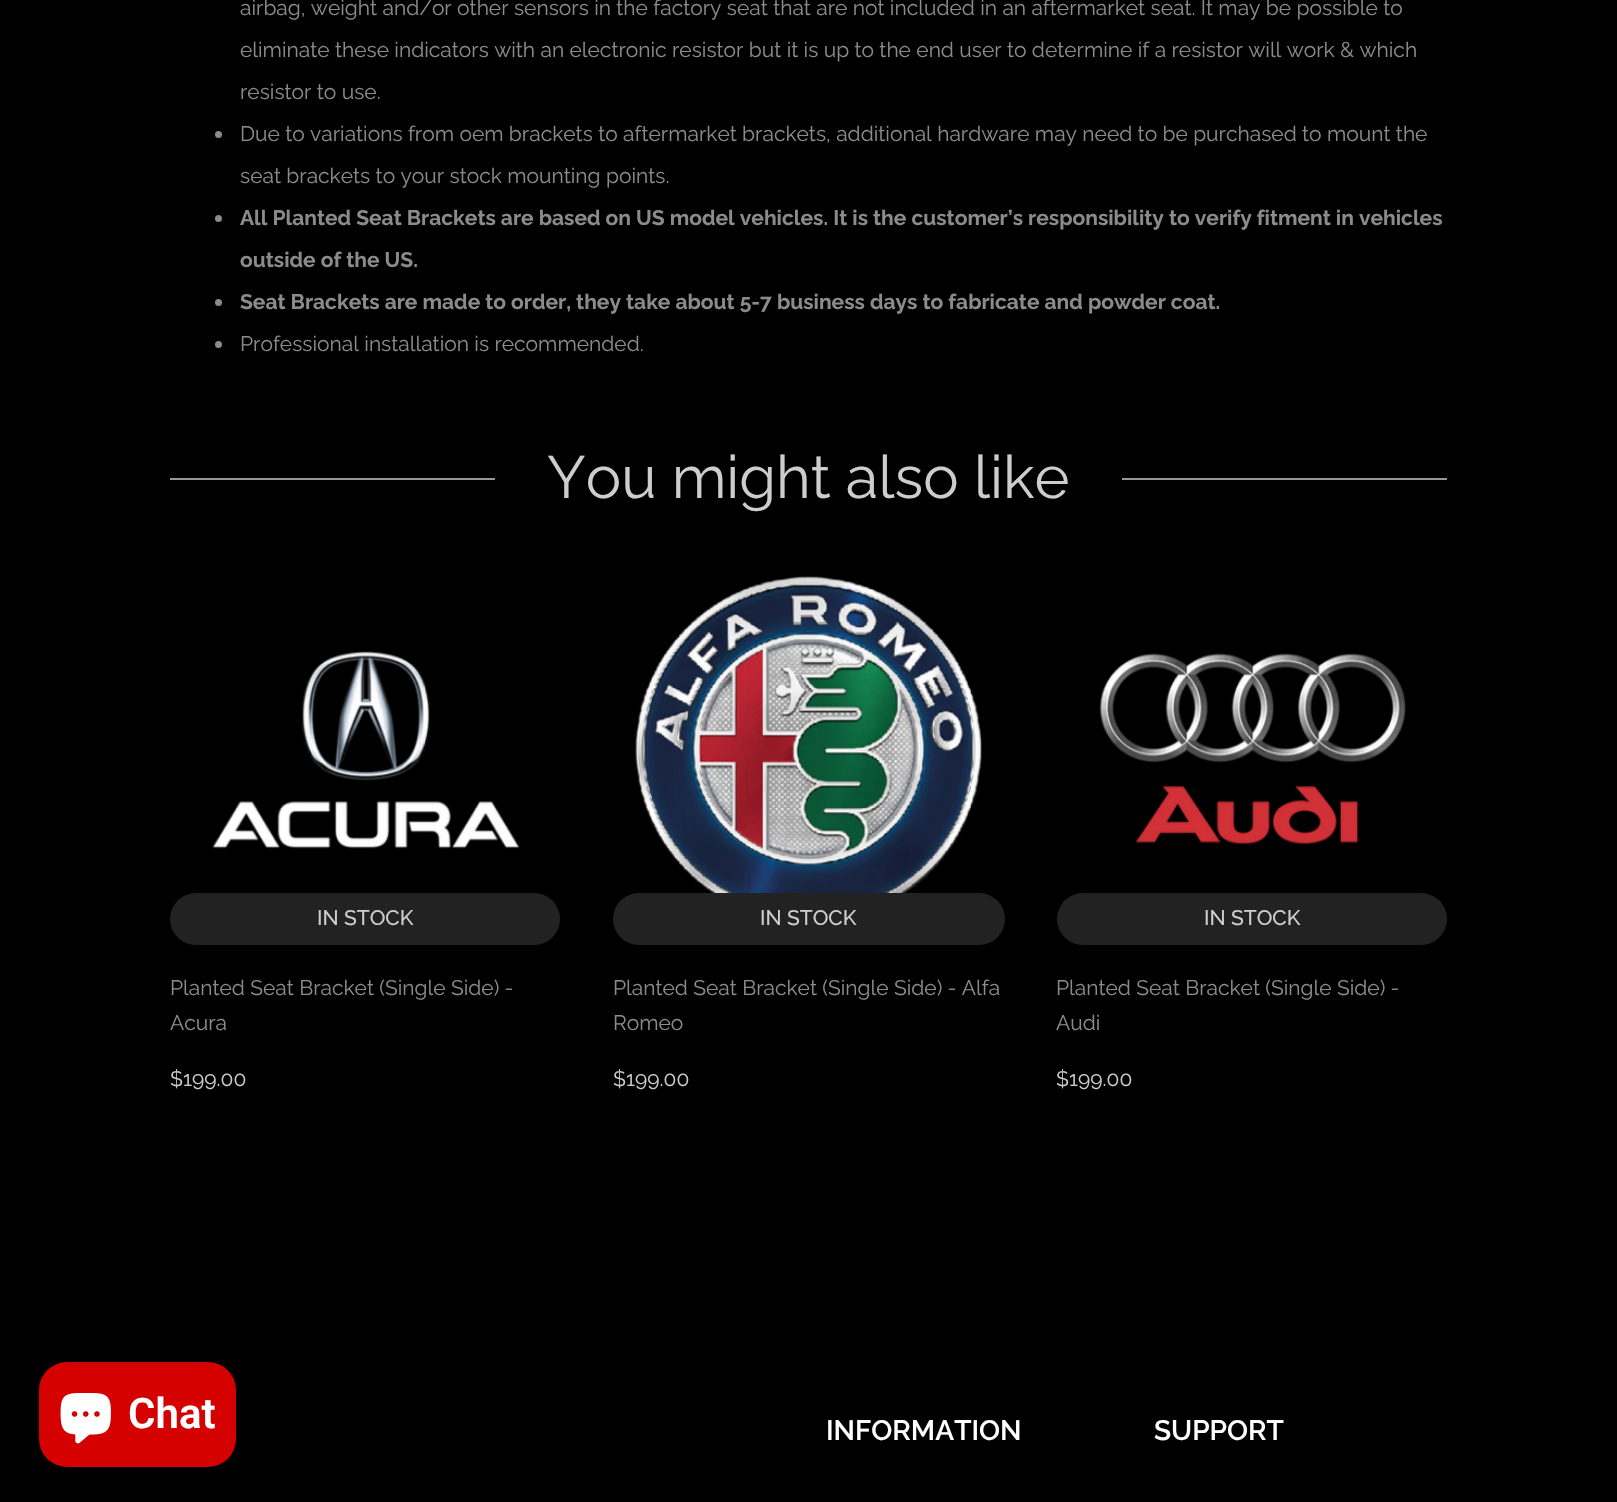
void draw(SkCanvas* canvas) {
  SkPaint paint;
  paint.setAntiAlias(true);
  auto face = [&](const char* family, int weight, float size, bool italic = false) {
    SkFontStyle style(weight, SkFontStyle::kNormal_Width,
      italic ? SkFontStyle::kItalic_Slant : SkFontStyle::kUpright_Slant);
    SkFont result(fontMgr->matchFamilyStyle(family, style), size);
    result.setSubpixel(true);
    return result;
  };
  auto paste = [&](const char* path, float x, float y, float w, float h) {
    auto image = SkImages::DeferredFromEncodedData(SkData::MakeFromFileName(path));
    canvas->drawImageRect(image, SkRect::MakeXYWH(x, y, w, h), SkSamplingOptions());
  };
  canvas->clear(0xff000000);
  paint.setColor(0xff8b8b8b);
  canvas->drawCircle(218.5f, 134.5f, 3.5f, paint);
  canvas->drawCircle(218.5f, 218.5f, 3.5f, paint);
  canvas->drawCircle(218.5f, 302.5f, 3.5f, paint);
  canvas->drawCircle(218.5f, 344.5f, 3.5f, paint);
  paint.setColor(0xff969696);
  canvas->drawRect(SkRect::MakeXYWH(170, 478, 1277, 2), paint);
  paint.setColor(0xff000000);
  canvas->drawRect(SkRect::MakeXYWH(495, 478, 627, 2), paint);
  paste("img/1.png", 212, 651, 308, 198);
  paint.setColor(0xff222222);
  canvas->drawRoundRect(SkRect::MakeXYWH(170, 893, 390, 52), 26, 26, paint);
  paste("img/2.png", 635, 576, 347, 317);
  canvas->drawRoundRect(SkRect::MakeXYWH(613, 893, 392, 52), 26, 26, paint);
  paste("img/3.png", 1099, 653, 307, 192);
  canvas->drawRoundRect(SkRect::MakeXYWH(1057, 893, 390, 52), 26, 26, paint);
  paint.setColor(0xffd50000);
  canvas->drawRoundRect(SkRect::MakeXYWH(39, 1362, 197, 105), 28, 28, paint);
  paste("img/4.png", 60, 1393, 51, 51);
  auto f0 = face("Raleway", 400, 21);
  paint.setColor(0xff8b8b8b);
  {
    const struct { const char* s; float x, y; } items[] = {
      {"airbag, weight and/or other sensors in the factory seat that are not included in an aftermarket seat. It may be possible to", 240, 15},
      {"eliminate these indicators with an electronic resistor but it is up to the end user to determine if a resistor will work & which", 240, 57},
      {"resistor to use.", 240, 99},
      {"Due to variations from oem brackets to aftermarket brackets, additional hardware may need to be purchased to mount the", 240, 141},
      {"seat brackets to your stock mounting points.", 240, 183},
    };
    for (auto [s, x, y] : items) {
      canvas->drawString(s, x, y, f0, paint);
    }
  }
  auto f1 = face("Raleway", 700, 21);
  {
    const struct { const char* s; float x, y; } items[] = {
      {"All Planted Seat Brackets are based on US model vehicles. It is the customer’s responsibility to verify fitment in vehicles", 240, 225},
      {"outside of the US.", 240, 267},
      {"Seat Brackets are made to order, they take about 5-7 business days to fabricate and powder coat.", 240, 309},
    };
    for (auto [s, x, y] : items) {
      canvas->drawString(s, x, y, f1, paint);
    }
  }
  canvas->drawString("Professional installation is recommended.", 240, 351, f0, paint);
  auto f2 = face("Raleway", 400, 59.5f);
  paint.setColor(0xffcdcdcd);
  canvas->drawString("You might also like", 547, 498, f2, paint);
  auto f3 = face("Raleway", 500, 21);
  canvas->drawString("IN STOCK", 317, 925, f3, paint);
  paint.setColor(0xff8b8b8b);
  canvas->drawString("Planted Seat Bracket (Single Side) -", 170, 995, f0, paint);
  canvas->drawString("Acura", 170, 1030, f0, paint);
  paint.setColor(0xffcdcdcd);
  canvas->drawString("$199.00", 170, 1086, f0, paint);
  canvas->drawString("IN STOCK", 760, 925, f3, paint);
  paint.setColor(0xff8b8b8b);
  canvas->drawString("Planted Seat Bracket (Single Side) - Alfa", 613, 995, f0, paint);
  canvas->drawString("Romeo", 613, 1030, f0, paint);
  paint.setColor(0xffcdcdcd);
  canvas->drawString("$199.00", 613, 1086, f0, paint);
  canvas->drawString("IN STOCK", 1204, 925, f3, paint);
  paint.setColor(0xff8b8b8b);
  canvas->drawString("Planted Seat Bracket (Single Side) -", 1056, 995, f0, paint);
  canvas->drawString("Audi", 1056, 1030, f0, paint);
  paint.setColor(0xffcdcdcd);
  canvas->drawString("$199.00", 1056, 1086, f0, paint);
  auto f4 = face("Raleway", 600, 28);
  paint.setColor(0xffffffff);
  canvas->drawString("INFORMATION", 826, 1440, f4, paint);
  canvas->drawString("SUPPORT", 1154, 1440, f4, paint);
  auto f5 = face("Roboto", 600, 42);
  canvas->drawString("Chat", 128, 1428, f5, paint);
}
